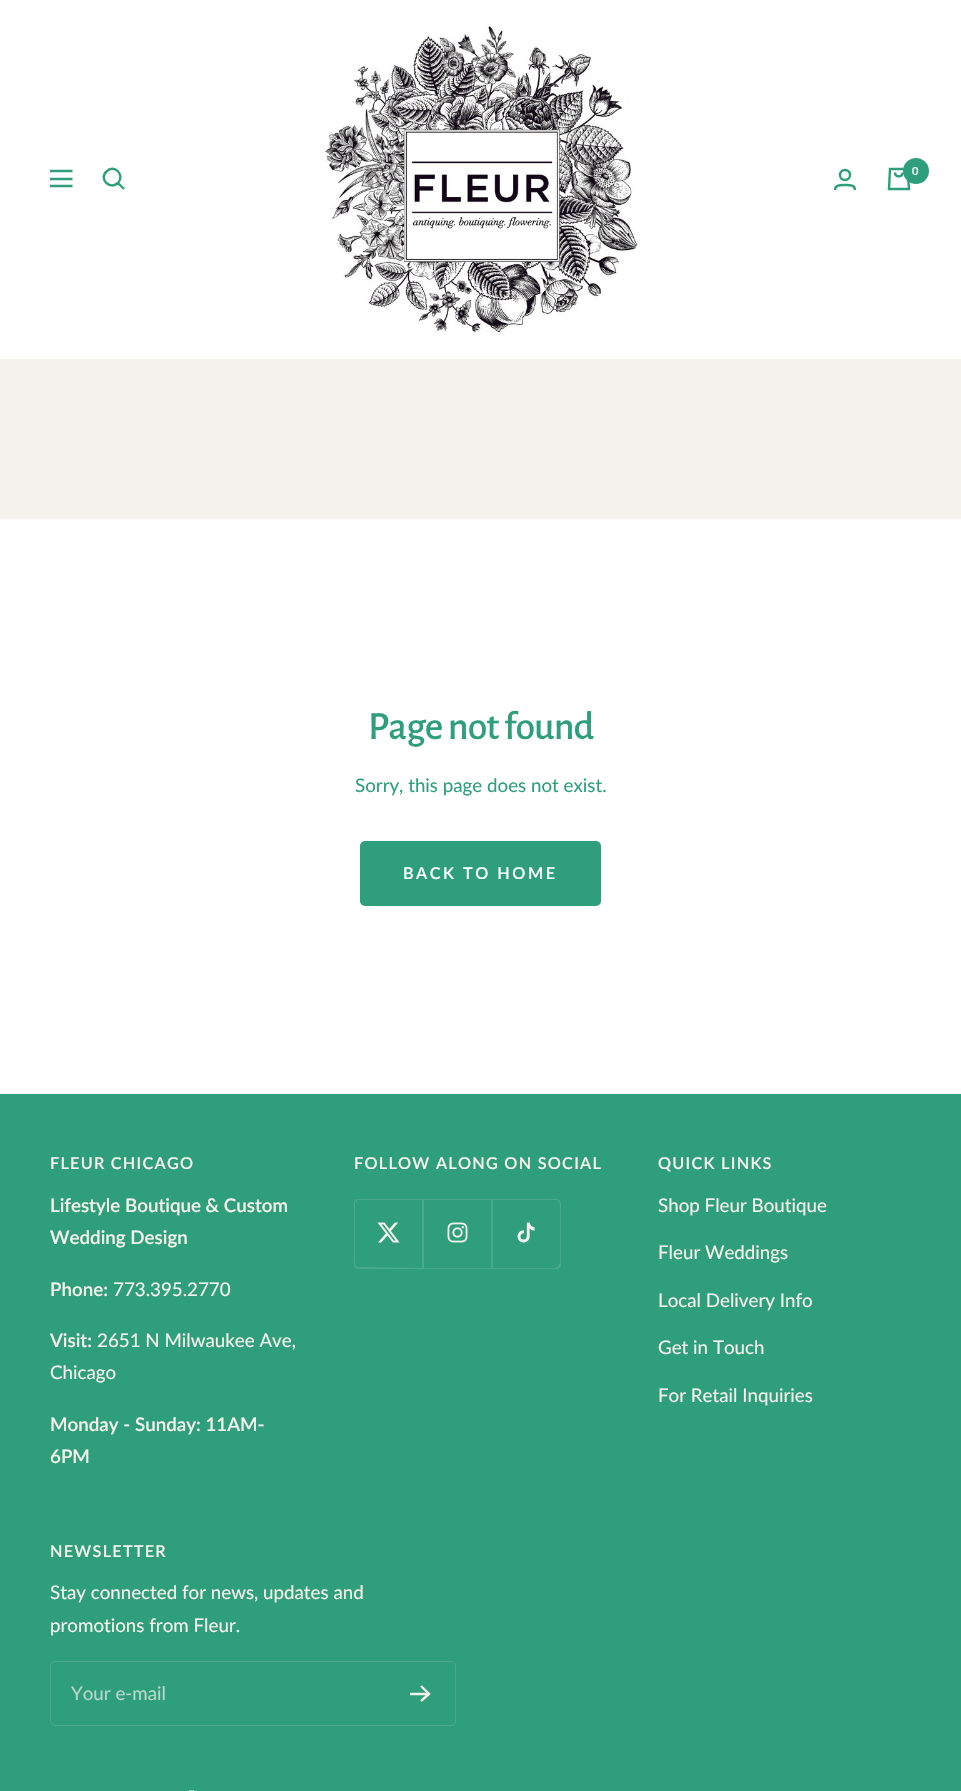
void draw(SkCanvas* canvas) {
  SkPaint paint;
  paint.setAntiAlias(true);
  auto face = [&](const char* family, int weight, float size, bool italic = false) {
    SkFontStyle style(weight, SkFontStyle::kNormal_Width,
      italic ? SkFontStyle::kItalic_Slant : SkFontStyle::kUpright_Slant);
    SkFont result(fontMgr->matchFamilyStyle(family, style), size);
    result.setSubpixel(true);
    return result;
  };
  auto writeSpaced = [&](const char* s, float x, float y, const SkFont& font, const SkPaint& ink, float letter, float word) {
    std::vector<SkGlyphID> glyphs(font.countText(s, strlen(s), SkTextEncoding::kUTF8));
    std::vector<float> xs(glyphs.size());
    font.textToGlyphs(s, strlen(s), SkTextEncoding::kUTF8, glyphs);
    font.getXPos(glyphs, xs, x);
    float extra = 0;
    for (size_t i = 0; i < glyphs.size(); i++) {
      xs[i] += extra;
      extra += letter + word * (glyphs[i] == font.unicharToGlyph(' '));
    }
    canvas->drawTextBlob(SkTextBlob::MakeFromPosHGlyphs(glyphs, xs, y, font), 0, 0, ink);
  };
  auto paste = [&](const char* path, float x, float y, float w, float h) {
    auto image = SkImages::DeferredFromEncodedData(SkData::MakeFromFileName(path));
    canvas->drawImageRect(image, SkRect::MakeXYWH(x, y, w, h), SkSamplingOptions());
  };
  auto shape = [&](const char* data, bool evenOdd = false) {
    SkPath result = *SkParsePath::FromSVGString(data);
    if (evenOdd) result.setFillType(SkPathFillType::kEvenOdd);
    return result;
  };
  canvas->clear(0xfff5f1ec);
  paint.setColor(0xffffffff);
  canvas->drawRect(SkRect::MakeXYWH(0, 0, 961, 359), paint);
  paint.setStroke(true);
  paint.setStrokeWidth(2.4f);
  paint.setColor(0xff2e9e7b);
  canvas->drawPath(shape("M50 171H72.5M50 186H72.5ZM50 179H72.5Z"), paint);
  canvas->drawPath(shape("M118 183C125.5 175 114 163.5 106.5 171.5C98.5 179 110 190.5 118 183ZM118 183L124 189"), paint);
  paste("img/1.png", 325, 26, 313, 307);
  canvas->drawCircle(845, 175, 5, paint);
  canvas->drawPath(shape("M835 190C835 184.5 841 185 845 185C849 185 855 184.5 855 190"), paint);
  canvas->drawPath(shape("M890 169H907.5L909 189H889ZM895 172.5C895 177.5 902.5 177.5 902.5 172.5"), paint);
  paint.setStroke(false);
  canvas->drawCircle(916, 171, 13, paint);
  paint.setColor(0xffffffff);
  canvas->drawRect(SkRect::MakeXYWH(0, 519, 961, 575), paint);
  paint.setColor(0xff2e9e7b);
  canvas->drawRoundRect(SkRect::MakeXYWH(360, 841, 241, 65), 5, 5, paint);
  canvas->drawRect(SkRect::MakeXYWH(0, 1094, 961, 697), paint);
  paint.setColor(0xff4caa8c);
  canvas->drawPath(shape("M356 1266C356 1268 358 1269 360 1269H424V1200H422V1268H359C358 1268 356 1267 356 1266Z"), paint);
  canvas->drawPath(shape("M354 1264C354 1267 356 1269 359 1269H423V1200H422V1268H359C357 1268 355 1266 354 1264Z"), paint);
  canvas->drawPath(shape("M358 1267L360 1268H424V1199H422V1268Z"), paint);
  canvas->drawPath(shape("M359 1200H422V1268H423V1199H359C356 1199 354 1201 354 1204V1205C354 1202 356 1200 359 1200Z"), paint);
  canvas->drawPath(shape("M359 1199C356 1199 354 1201 354 1204V1263C354 1266 356 1268 359 1268H360C357 1268 355 1265 355 1262V1204C355 1201 357 1199 360 1199Z"), paint);
  paste("img/2.png", 377, 1222, 23, 21);
  canvas->drawPath(shape("M424 1268V1269H493V1200H491V1268Z"), paint);
  canvas->drawPath(shape("M424 1268H493V1199H491V1268Z"), paint);
  canvas->drawRect(SkRect::MakeXYWH(423, 1199, 68, 1), paint);
  paste("img/3.png", 447, 1222, 21, 21);
  canvas->drawPath(shape("M493 1268V1269H556C559 1269 561 1267 561 1264V1205C561 1204 560 1202 559 1201L560 1204V1262C560 1265 558 1268 555 1268Z"), paint);
  canvas->drawPath(shape("M491 1200V1269H555C558 1269 560 1267 560 1264V1262C560 1265 558 1268 555 1268H491Z"), paint);
  canvas->drawPath(shape("M493 1268H556C559 1268 561 1266 561 1263V1204C561 1201 559 1199 557 1199C559 1200 560 1202 560 1204V1262C560 1265 558 1268 555 1268Z"), paint);
  canvas->drawPath(shape("M491 1200H555C558 1200 560 1202 560 1205V1204C560 1201 558 1199 555 1199H491Z"), paint);
  paste("img/4.png", 517, 1222, 18, 21);
  paint.setStroke(true);
  paint.setStrokeWidth(1);
  canvas->drawRoundRect(SkRect::MakeXYWH(50.5f, 1661.5f, 405, 64), 4.5f, 4.5f, paint);
  paint.setStrokeWidth(2.4f);
  paint.setColor(0xfff5f1ec);
  canvas->drawPath(shape("M410 1694H429M421 1686L429 1694L421 1701"), paint);
  paint.setStroke(false);
  paint.setColor(0xff92c8b4);
  canvas->drawRect(SkRect::MakeXYWH(189, 1790, 5, 1), paint);
  auto f0 = face("Lato", 600, 11);
  paint.setColor(0xffffffff);
  canvas->drawString("0", 912, 175, f0, paint);
  auto f1 = face("Alegreya Sans", 500, 40);
  paint.setColor(0xff2e9e7b);
  writeSpaced("Page not found", 368, 739, f1, paint, -1, 0);
  auto f2 = face("Lato", 400, 18.75f);
  canvas->drawString("Sorry, this page does not exist.", 355, 792, f2, paint);
  auto f3 = face("Lato", 600, 16.25f);
  paint.setColor(0xffffffff);
  writeSpaced("BACK TO HOME", 403, 879, f3, paint, 2.5f, 0);
  paint.setColor(0xfff5f1ec);
  writeSpaced("FLEUR CHICAGO", 50, 1169, f3, paint, 1.25f, 0);
  auto f4 = face("Lato", 600, 18.75f);
  {
    const struct { const char* s; float x, y; } items[] = {
      {"Lifestyle Boutique & Custom", 50, 1212},
      {"Wedding Design", 50, 1244},
      {"Phone:", 50, 1296},
    };
    for (auto [s, x, y] : items) {
      canvas->drawString(s, x, y, f4, paint);
    }
  }
  canvas->drawString("773.395.2770", 113, 1296, f2, paint);
  canvas->drawString("Visit:", 50, 1347, f4, paint);
  canvas->drawString("2651 N Milwaukee Ave,", 97, 1347, f2, paint);
  canvas->drawString("Chicago", 50, 1379, f2, paint);
  canvas->drawString("Monday - Sunday: 11AM-", 50, 1431, f4, paint);
  canvas->drawString("6PM", 50, 1463, f4, paint);
  writeSpaced("FOLLOW ALONG ON SOCIAL", 354, 1169, f3, paint, 1.25f, 0);
  writeSpaced("QUICK LINKS", 658, 1169, f3, paint, 1.25f, 0);
  {
    const struct { const char* s; float x, y; } items[] = {
      {"Shop Fleur Boutique", 658, 1212},
      {"Fleur Weddings", 658, 1259},
      {"Local Delivery Info", 658, 1307},
      {"Get in Touch", 658, 1354},
      {"For Retail Inquiries", 658, 1402},
    };
    for (auto [s, x, y] : items) {
      canvas->drawString(s, x, y, f2, paint);
    }
  }
  writeSpaced("NEWSLETTER", 50, 1557, f3, paint, 1.25f, 0);
  canvas->drawString("Stay connected for news, updates and", 50, 1599, f2, paint);
  canvas->drawString("promotions from Fleur.", 50, 1632, f2, paint);
  paint.setColor(0xffb9d8ca);
  canvas->drawString("Your e-mail", 71, 1700, f2, paint);
}
